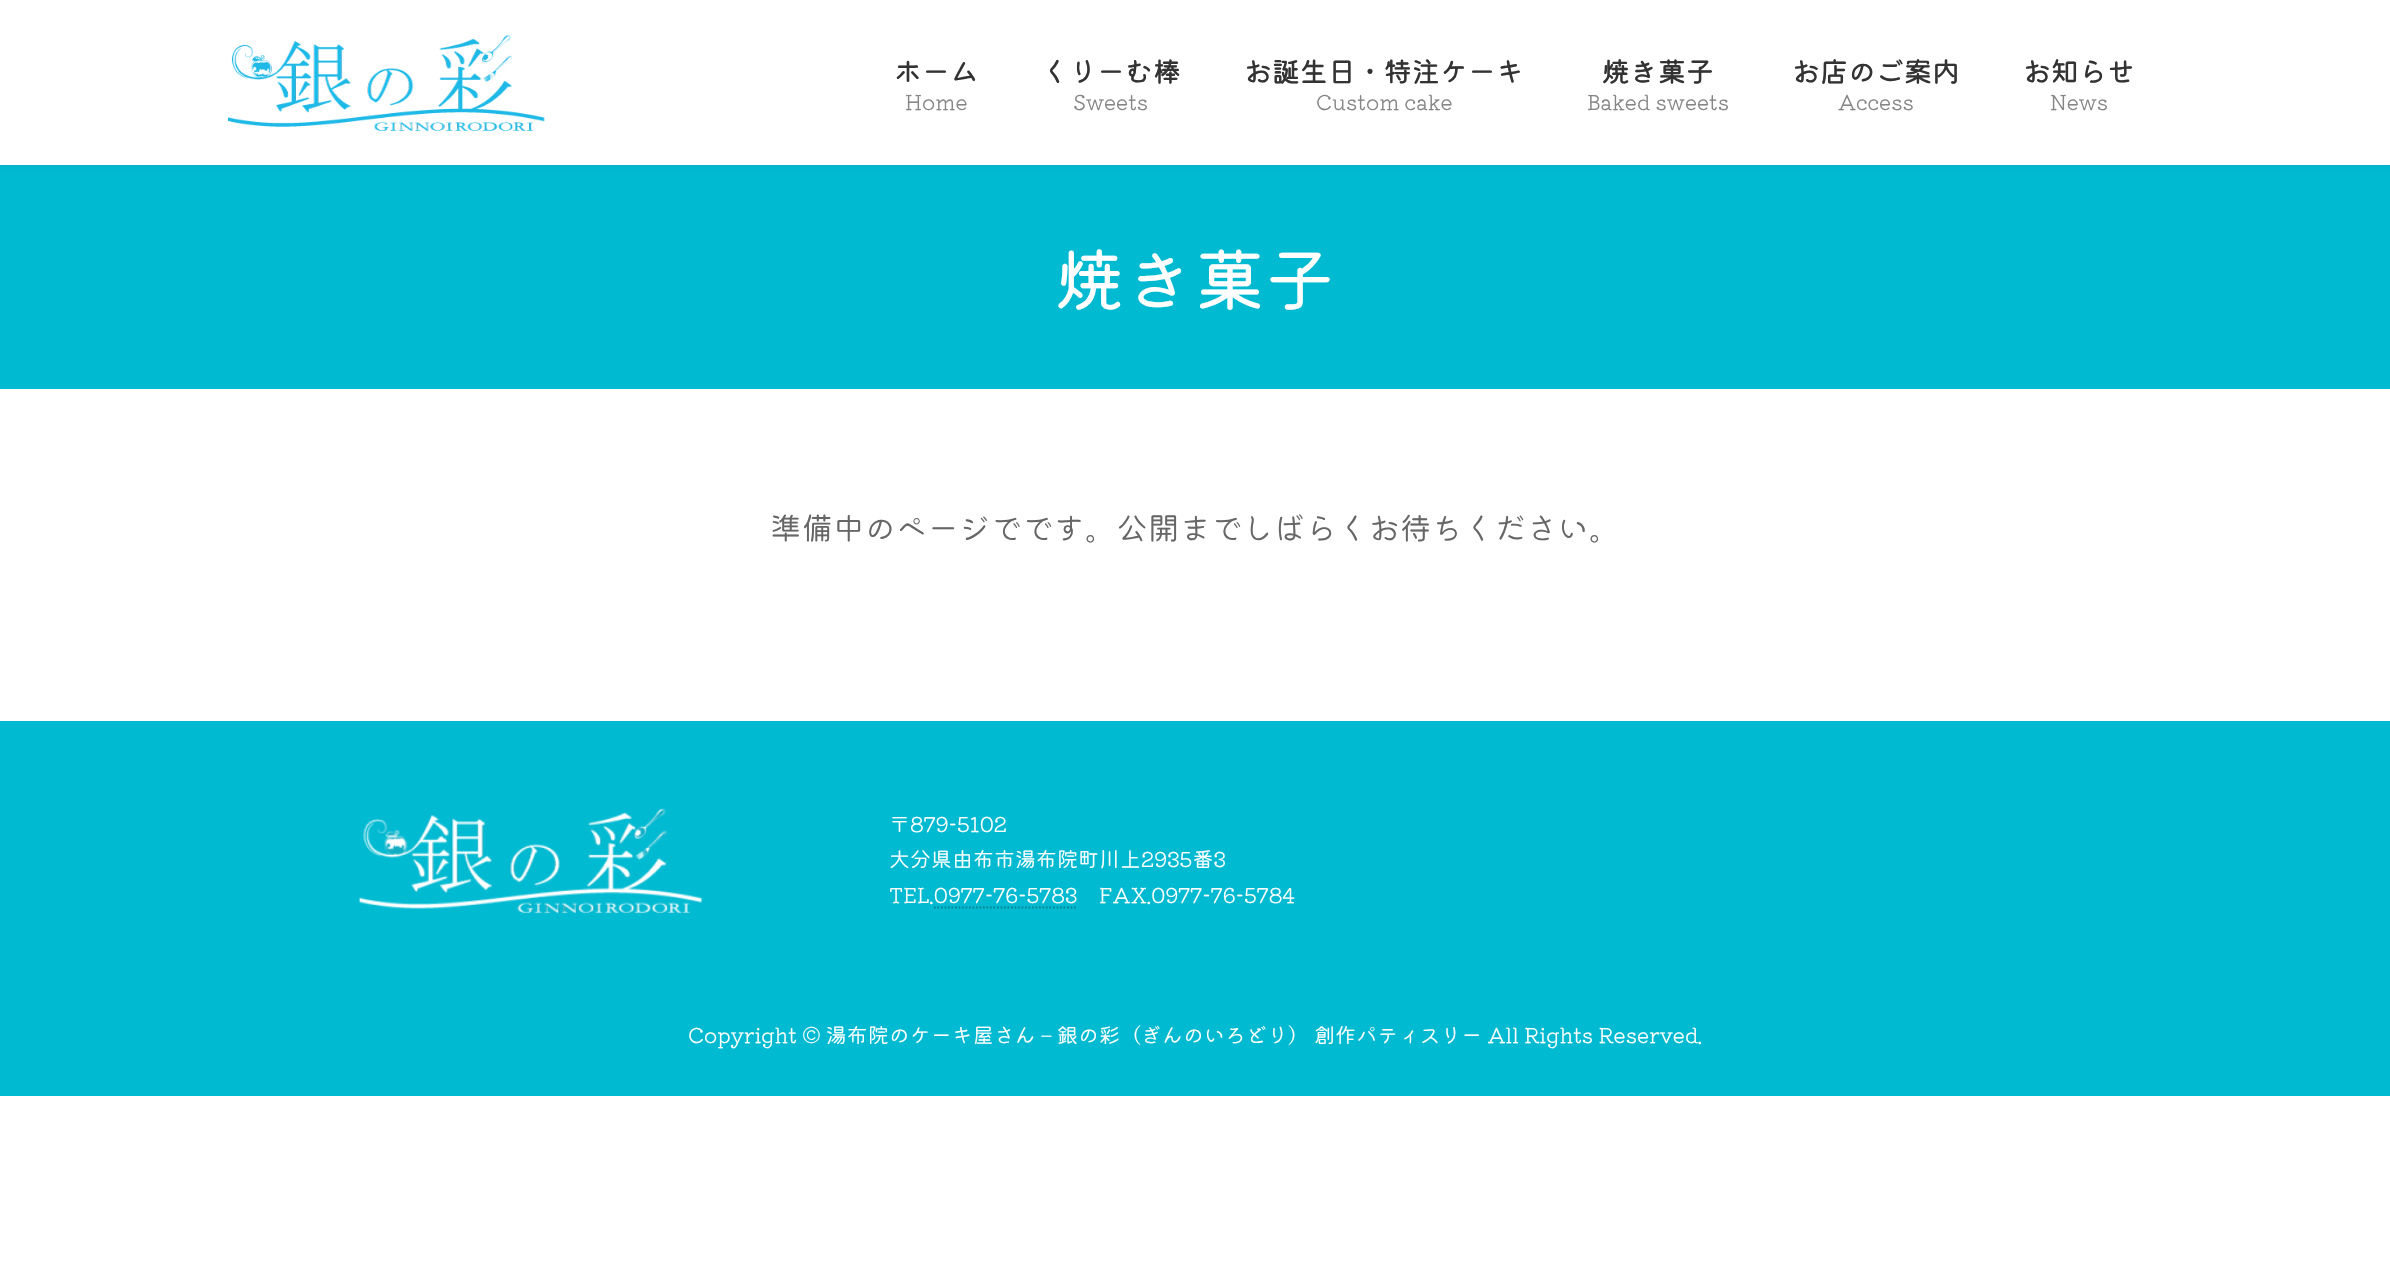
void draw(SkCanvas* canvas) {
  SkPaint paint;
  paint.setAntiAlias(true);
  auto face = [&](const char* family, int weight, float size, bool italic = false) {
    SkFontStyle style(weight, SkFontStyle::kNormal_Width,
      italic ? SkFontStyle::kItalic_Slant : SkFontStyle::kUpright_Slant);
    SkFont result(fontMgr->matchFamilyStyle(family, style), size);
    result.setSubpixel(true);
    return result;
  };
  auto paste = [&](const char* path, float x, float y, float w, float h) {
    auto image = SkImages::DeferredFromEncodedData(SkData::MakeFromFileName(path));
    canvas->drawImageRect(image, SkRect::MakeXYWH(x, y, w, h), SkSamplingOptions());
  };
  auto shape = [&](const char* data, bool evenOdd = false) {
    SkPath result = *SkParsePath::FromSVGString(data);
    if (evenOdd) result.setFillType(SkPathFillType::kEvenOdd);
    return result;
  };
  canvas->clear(0xffffffff);
  paint.setColor(0xff00bad2);
  canvas->drawRect(SkRect::MakeXYWH(0, 165, 2390, 224), paint);
  paint.setColor(0x0d000000);
  paint.setMaskFilter(SkMaskFilter::MakeBlur(kNormal_SkBlurStyle, 2.5f));
  canvas->drawRect(SkRect::MakeXYWH(0, 2, 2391, 164), paint);
  paint.setMaskFilter(nullptr);
  paint.setColor(0xffffffff);
  canvas->drawRect(SkRect::MakeXYWH(0, 0, 2390, 165), paint);
  paste("img/1.png", 228, 35, 317, 96);
  paint.setColor(0xff00bad2);
  canvas->drawRect(SkRect::MakeXYWH(0, 721, 2390, 375), paint);
  paste("img/2.png", 358, 808, 344, 106);
  paint.setStroke(true);
  paint.setStrokeWidth(1.8f);
  paint.setColor(0xff008293);
  paint.setPathEffect(SkDashPathEffect::Make({{1.75f, 1.75f}}, 0));
  canvas->drawPath(shape("M934 907.5H1077.5"), paint);
  paint.setPathEffect(nullptr);
  auto f0 = face("Kiwi Maru", 500, 28);
  paint.setStroke(false);
  paint.setColor(0xff333333);
  canvas->drawString("ホーム", 894, 82, f0, paint);
  auto f1 = face("Kiwi Maru", 300, 21);
  paint.setColor(0xff858585);
  canvas->drawString("Home", 905, 110, f1, paint);
  paint.setColor(0xff333333);
  canvas->drawString("くりーむ棒", 1041, 82, f0, paint);
  paint.setColor(0xff858585);
  canvas->drawString("Sweets", 1073, 110, f1, paint);
  paint.setColor(0xff333333);
  canvas->drawString("お誕生日・特注ケーキ", 1244, 82, f0, paint);
  paint.setColor(0xff858585);
  canvas->drawString("Custom cake", 1316, 110, f1, paint);
  paint.setColor(0xff333333);
  canvas->drawString("焼き菓子", 1602, 82, f0, paint);
  paint.setColor(0xff858585);
  canvas->drawString("Baked sweets", 1587, 110, f1, paint);
  paint.setColor(0xff333333);
  canvas->drawString("お店のご案内", 1792, 82, f0, paint);
  paint.setColor(0xff858585);
  canvas->drawString("Access", 1838, 110, f1, paint);
  paint.setColor(0xff333333);
  canvas->drawString("お知らせ", 2023, 82, f0, paint);
  paint.setColor(0xff858585);
  canvas->drawString("News", 2050, 110, f1, paint);
  auto f2 = face("Kiwi Maru", 400, 70);
  paint.setColor(0xffffffff);
  canvas->drawString("焼き菓子", 1055, 306, f2, paint);
  auto f3 = face("Kiwi Maru", 300, 31.5f);
  paint.setColor(0xff666666);
  canvas->drawString("準備中のページでです。公開までしばらくお待ちください。", 770, 540, f3, paint);
  paint.setColor(0xffffffff);
  {
    const struct { const char* s; float x, y; } items[] = {
      {"〒879-5102", 889, 832},
      {"大分県由布市湯布院町川上2935番3", 889, 867},
      {"TEL.0977-76-5783", 889, 903},
      {"FAX.0977-76-5784", 1099, 903},
      {"Copyright © 湯布院のケーキ屋さん – 銀の彩（ぎんのいろどり） 創作パティスリー All Rights Reserved.", 688, 1043},
    };
    for (auto [s, x, y] : items) {
      canvas->drawString(s, x, y, f1, paint);
    }
  }
}
